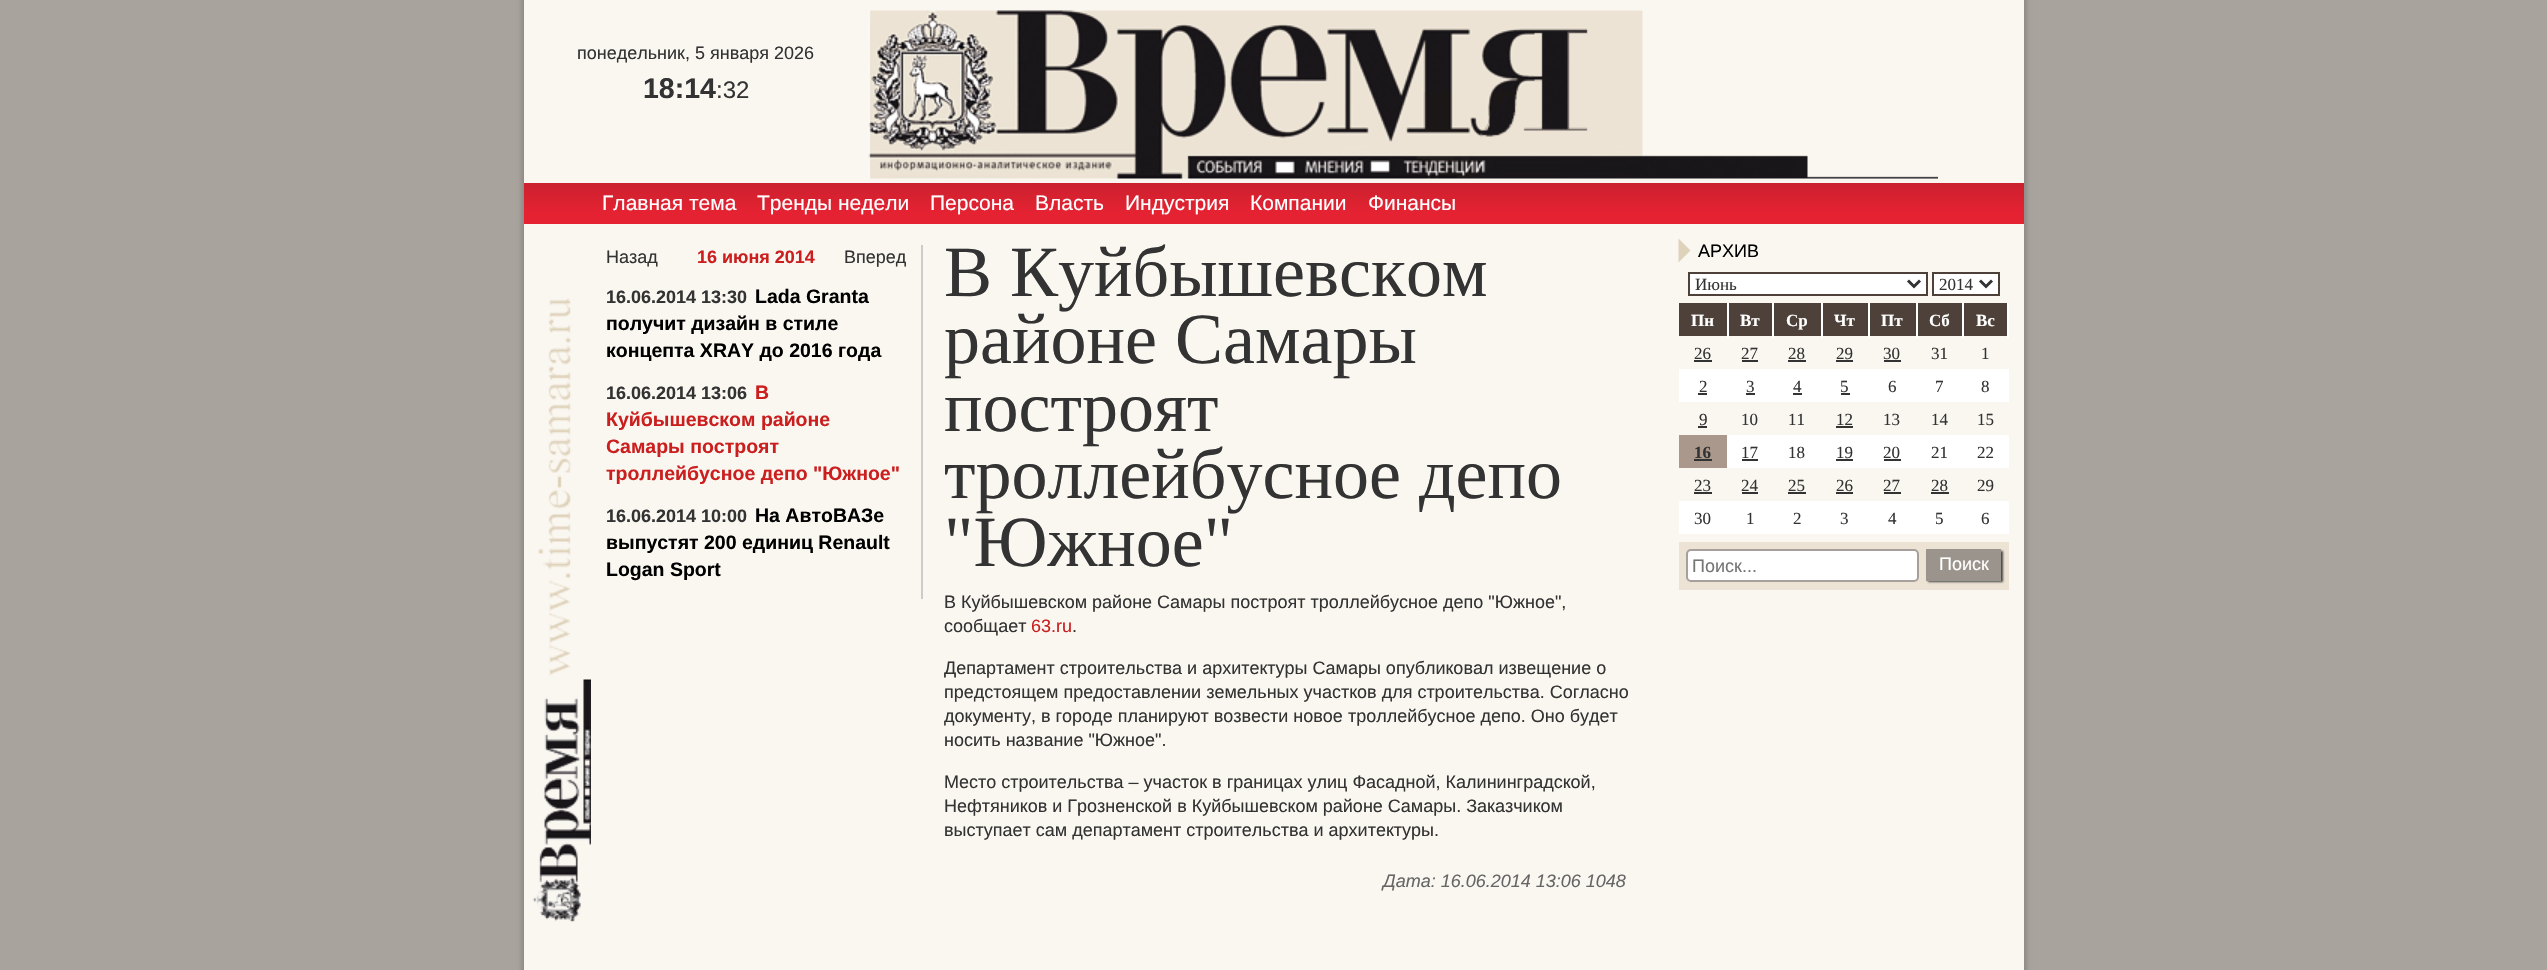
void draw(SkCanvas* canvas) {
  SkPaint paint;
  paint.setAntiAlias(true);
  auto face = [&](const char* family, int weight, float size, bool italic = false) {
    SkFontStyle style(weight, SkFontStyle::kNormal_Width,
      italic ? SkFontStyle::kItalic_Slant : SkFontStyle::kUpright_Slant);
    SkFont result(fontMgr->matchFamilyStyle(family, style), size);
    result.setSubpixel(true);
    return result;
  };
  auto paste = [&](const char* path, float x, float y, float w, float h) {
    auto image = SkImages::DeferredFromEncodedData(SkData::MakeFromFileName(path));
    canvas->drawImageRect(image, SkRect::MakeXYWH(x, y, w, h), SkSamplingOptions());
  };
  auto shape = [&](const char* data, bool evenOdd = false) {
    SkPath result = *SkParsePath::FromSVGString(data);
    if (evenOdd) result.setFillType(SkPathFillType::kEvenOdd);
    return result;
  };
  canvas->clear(0xffa9a39e);
  paint.setColor(0x26000000);
  paint.setMaskFilter(SkMaskFilter::MakeBlur(kNormal_SkBlurStyle, 2));
  canvas->drawRect(SkRect::MakeXYWH(521, -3, 1506, 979), paint);
  paint.setMaskFilter(nullptr);
  paint.setColor(0xfffaf7f1);
  canvas->drawRect(SkRect::MakeXYWH(524, 0, 1500, 970), paint);
  paste("img/1.png", 868, 10, 1070, 169);
  {
    const SkColor colors[] = {0xffe42232, 0xffe42232, 0xffcb212e};
    const float stops[] = {0, 0.3f, 1};
    const SkPoint ends[] = {{1274, 224}, {1274, 183}};
    paint.setShader(SkGradientShader::MakeLinear(ends, colors, stops, 3, SkTileMode::kClamp));
    paint.setAlpha(255);
  }
  canvas->drawRect(SkRect::MakeXYWH(524, 183, 1500, 41), paint);
  paste("img/2.png", 532, 298, 59, 624);
  paint.setShader(nullptr);
  paint.setColor(0xffcccccc);
  canvas->drawRect(SkRect::MakeXYWH(921, 245, 2, 354), paint);
  paint.setColor(0xffdfd2bb);
  canvas->drawPath(shape("M1678.5 262.5V238.5L1690.5 250.5Z"), paint);
  paint.setColor(0xffffffff);
  canvas->drawRect(SkRect::MakeXYWH(1689, 273, 238, 22), paint);
  paint.setStroke(true);
  paint.setStrokeWidth(2);
  paint.setColor(0xff4d413a);
  canvas->drawRect(SkRect::MakeXYWH(1689, 273, 238, 22), paint);
  paint.setStrokeWidth(3);
  paint.setColor(0xff333333);
  canvas->drawPath(shape("M1908 280.5L1914 286.5L1920 280.5"), paint);
  paint.setStroke(false);
  paint.setColor(0xffffffff);
  canvas->drawRect(SkRect::MakeXYWH(1933, 273, 66, 22), paint);
  paint.setStroke(true);
  paint.setStrokeWidth(2);
  paint.setColor(0xff4d413a);
  canvas->drawRect(SkRect::MakeXYWH(1933, 273, 66, 22), paint);
  paint.setStrokeWidth(3);
  paint.setColor(0xff333333);
  canvas->drawPath(shape("M1980 280.5L1986 286.5L1992 280.5"), paint);
  paint.setStroke(false);
  {
    const struct { float x, y, w, h; SkColor color; } items[] = {
      {1679, 303, 48, 33, 0xff4d4139},
      {1727, 303, 2, 35, 0xffffffff},
      {1729, 303, 43, 33, 0xff4d4139},
      {1772, 303, 2, 35, 0xffffffff},
      {1774, 303, 47, 33, 0xff4d4139},
      {1821, 303, 2, 35, 0xffffffff},
      {1823, 303, 45, 33, 0xff4d4139},
      {1868, 303, 2, 35, 0xffffffff},
      {1870, 303, 46, 33, 0xff4d4139},
      {1916, 303, 2, 35, 0xffffffff},
      {1918, 303, 44, 33, 0xff4d4139},
      {1962, 303, 2, 35, 0xffffffff},
      {1964, 303, 43, 33, 0xff4d4139},
      {2007, 303, 2, 35, 0xffffffff},
      {1694, 360, 18, 2, 0xff333333},
      {1742, 360, 16, 2, 0xff333333},
      {1788, 360, 18, 2, 0xff333333},
      {1836, 360, 17, 2, 0xff333333},
      {1884, 360, 17, 2, 0xff333333},
      {1679, 369, 330, 33, 0xffffffff},
      {1698, 393, 9, 2, 0xff333333},
      {1746, 393, 9, 2, 0xff333333},
      {1793, 393, 9, 2, 0xff333333},
      {1841, 393, 9, 2, 0xff333333},
      {1698, 426, 9, 2, 0xff333333},
      {1836, 426, 17, 2, 0xff333333},
      {1727, 435, 282, 33, 0xffffffff},
      {1679, 435, 48, 33, 0xffaa988c},
      {1694, 459, 18, 2, 0xff333333},
      {1742, 459, 16, 2, 0xff333333},
      {1836, 459, 17, 2, 0xff333333},
      {1884, 459, 17, 2, 0xff333333},
      {1694, 492, 18, 2, 0xff333333},
      {1742, 492, 16, 2, 0xff333333},
      {1788, 492, 18, 2, 0xff333333},
      {1836, 492, 17, 2, 0xff333333},
      {1884, 492, 17, 2, 0xff333333},
      {1931, 492, 18, 2, 0xff333333},
      {1679, 501, 330, 33, 0xffffffff},
      {1679, 542, 330, 48, 0xffece3d4},
    };
    for (auto [x, y, w, h, color] : items) {
      paint.setColor(color);
      canvas->drawRect(SkRect::MakeXYWH(x, y, w, h), paint);
    }
  }
  paint.setColor(0xffffffff);
  canvas->drawRoundRect(SkRect::MakeXYWH(1687, 550, 231, 31), 4, 4, paint);
  paint.setStroke(true);
  paint.setStrokeWidth(2);
  paint.setColor(0xffa69f9b);
  canvas->drawRoundRect(SkRect::MakeXYWH(1687, 550, 231, 31), 4, 4, paint);
  paint.setStroke(false);
  paint.setColor(0xff444444);
  paint.setMaskFilter(SkMaskFilter::MakeBlur(kNormal_SkBlurStyle, 1));
  canvas->drawRect(SkRect::MakeXYWH(1928, 551, 75, 31), paint);
  paint.setMaskFilter(nullptr);
  paint.setColor(0xff9b948c);
  canvas->drawRect(SkRect::MakeXYWH(1926, 549, 75, 32), paint);
  auto f0 = face("Liberation Sans", 400, 18);
  paint.setColor(0xff333333);
  canvas->drawString("понедельник, 5 января 2026", 577, 59, f0, paint);
  auto f1 = face("Liberation Sans", 700, 28.5f);
  canvas->drawString("18:14", 643, 98, f1, paint);
  auto f2 = face("Liberation Sans", 400, 24);
  canvas->drawString(":32", 716, 98, f2, paint);
  auto f3 = face("Liberation Sans", 400, 21);
  paint.setColor(0xffffffff);
  {
    const struct { const char* s; float x, y; } items[] = {
      {"Главная тема", 602, 210},
      {"Тренды недели", 757, 210},
      {"Персона", 930, 210},
      {"Власть", 1035, 210},
      {"Индустрия", 1125, 210},
      {"Компании", 1250, 210},
      {"Финансы", 1368, 210},
    };
    for (auto [s, x, y] : items) {
      canvas->drawString(s, x, y, f3, paint);
    }
  }
  paint.setColor(0xff333333);
  canvas->drawString("Назад", 606, 263, f0, paint);
  auto f4 = face("Liberation Sans", 700, 18);
  paint.setColor(0xffcb1f1f);
  canvas->drawString("16 июня 2014", 697, 263, f4, paint);
  paint.setColor(0xff333333);
  canvas->drawString("Вперед", 844, 263, f0, paint);
  canvas->drawString("16.06.2014 13:30", 606, 303, f4, paint);
  auto f5 = face("Liberation Sans", 700, 19.5f);
  paint.setColor(0xff000000);
  {
    const struct { const char* s; float x, y; } items[] = {
      {"Lada Granta", 755, 303},
      {"получит дизайн в стиле", 606, 330},
      {"концепта XRAY до 2016 года", 606, 357},
    };
    for (auto [s, x, y] : items) {
      canvas->drawString(s, x, y, f5, paint);
    }
  }
  paint.setColor(0xff333333);
  canvas->drawString("16.06.2014 13:06", 606, 399, f4, paint);
  paint.setColor(0xffcb1f1f);
  {
    const struct { const char* s; float x, y; } items[] = {
      {"В", 755, 399},
      {"Куйбышевском районе", 606, 426},
      {"Самары построят", 606, 453},
      {"троллейбусное депо \"Южное\"", 606, 480},
    };
    for (auto [s, x, y] : items) {
      canvas->drawString(s, x, y, f5, paint);
    }
  }
  paint.setColor(0xff333333);
  canvas->drawString("16.06.2014 10:00", 606, 522, f4, paint);
  paint.setColor(0xff000000);
  {
    const struct { const char* s; float x, y; } items[] = {
      {"На АвтоВАЗе", 755, 522},
      {"выпустят 200 единиц Renault", 606, 549},
      {"Logan Sport", 606, 576},
    };
    for (auto [s, x, y] : items) {
      canvas->drawString(s, x, y, f5, paint);
    }
  }
  auto f6 = face("Liberation Serif", 400, 72);
  paint.setColor(0xff333333);
  {
    const struct { const char* s; float x, y; } items[] = {
      {"В Куйбышевском", 944, 296},
      {"районе Самары", 944, 363},
      {"построят", 944, 431},
      {"троллейбусное депо", 944, 498},
      {"\"Южное\"", 944, 566},
    };
    for (auto [s, x, y] : items) {
      canvas->drawString(s, x, y, f6, paint);
    }
  }
  canvas->drawString("В Куйбышевском районе Самары построят троллейбусное депо \"Южное\",", 944, 608, f0, paint);
  canvas->drawString("сообщает", 944, 632, f0, paint);
  paint.setColor(0xffcb1f1f);
  canvas->drawString("63.ru", 1031, 632, f0, paint);
  paint.setColor(0xff333333);
  {
    const struct { const char* s; float x, y; } items[] = {
      {".", 1072, 632},
      {"Департамент строительства и архитектуры Самары опубликовал извещение о", 944, 674},
      {"предстоящем предоставлении земельных участков для строительства. Согласно", 944, 698},
      {"документу, в городе планируют возвести новое троллейбусное депо. Оно будет", 944, 722},
      {"носить название \"Южное\".", 944, 746},
      {"Место строительства – участок в границах улиц Фасадной, Калининградской,", 944, 788},
      {"Нефтяников и Грозненской в Куйбышевском районе Самары. Заказчиком", 944, 812},
      {"выступает сам департамент строительства и архитектуры.", 944, 836},
    };
    for (auto [s, x, y] : items) {
      canvas->drawString(s, x, y, f0, paint);
    }
  }
  auto f7 = face("Liberation Sans", 400, 18, true);
  paint.setColor(0xff666666);
  canvas->drawString("Дата: 16.06.2014 13:06 1048", 1383, 887, f7, paint);
  paint.setColor(0xff000000);
  canvas->drawString("АРХИВ", 1698, 257, f0, paint);
  auto f8 = face("Liberation Serif", 400, 17);
  paint.setColor(0xff333333);
  canvas->drawString("Июнь", 1695, 290, f8, paint);
  canvas->drawString("2014", 1939, 290, f8, paint);
  auto f9 = face("Liberation Serif", 700, 17);
  paint.setColor(0xffffffff);
  {
    const struct { const char* s; float x, y; } items[] = {
      {"Пн", 1691, 326},
      {"Вт", 1740, 326},
      {"Ср", 1786, 326},
      {"Чт", 1834, 326},
      {"Пт", 1881, 326},
      {"Сб", 1929, 326},
      {"Вс", 1976, 326},
    };
    for (auto [s, x, y] : items) {
      canvas->drawString(s, x, y, f9, paint);
    }
  }
  paint.setColor(0xff333333);
  {
    const struct { const char* s; float x, y; } items[] = {
      {"26", 1694, 359},
      {"27", 1741, 359},
      {"28", 1788, 359},
      {"29", 1836, 359},
      {"30", 1883, 359},
      {"31", 1931, 359},
      {"1", 1981, 359},
      {"2", 1699, 392},
      {"3", 1746, 392},
      {"4", 1793, 392},
      {"5", 1840, 392},
      {"6", 1888, 392},
      {"7", 1935, 392},
      {"8", 1981, 392},
      {"9", 1699, 425},
      {"10", 1741, 425},
      {"11", 1788, 425},
      {"12", 1836, 425},
      {"13", 1883, 425},
      {"14", 1931, 425},
      {"15", 1977, 425},
    };
    for (auto [s, x, y] : items) {
      canvas->drawString(s, x, y, f8, paint);
    }
  }
  canvas->drawString("16", 1694, 458, f9, paint);
  {
    const struct { const char* s; float x, y; } items[] = {
      {"17", 1741, 458},
      {"18", 1788, 458},
      {"19", 1836, 458},
      {"20", 1883, 458},
      {"21", 1931, 458},
      {"22", 1977, 458},
      {"23", 1694, 491},
      {"24", 1741, 491},
      {"25", 1788, 491},
      {"26", 1836, 491},
      {"27", 1883, 491},
      {"28", 1931, 491},
      {"29", 1977, 491},
      {"30", 1694, 524},
      {"1", 1746, 524},
      {"2", 1793, 524},
      {"3", 1840, 524},
      {"4", 1888, 524},
      {"5", 1935, 524},
      {"6", 1981, 524},
    };
    for (auto [s, x, y] : items) {
      canvas->drawString(s, x, y, f8, paint);
    }
  }
  paint.setColor(0xff757575);
  canvas->drawString("Поиск...", 1692, 572, f0, paint);
  paint.setColor(0xffffffff);
  canvas->drawString("Поиск", 1939, 570, f0, paint);
}
